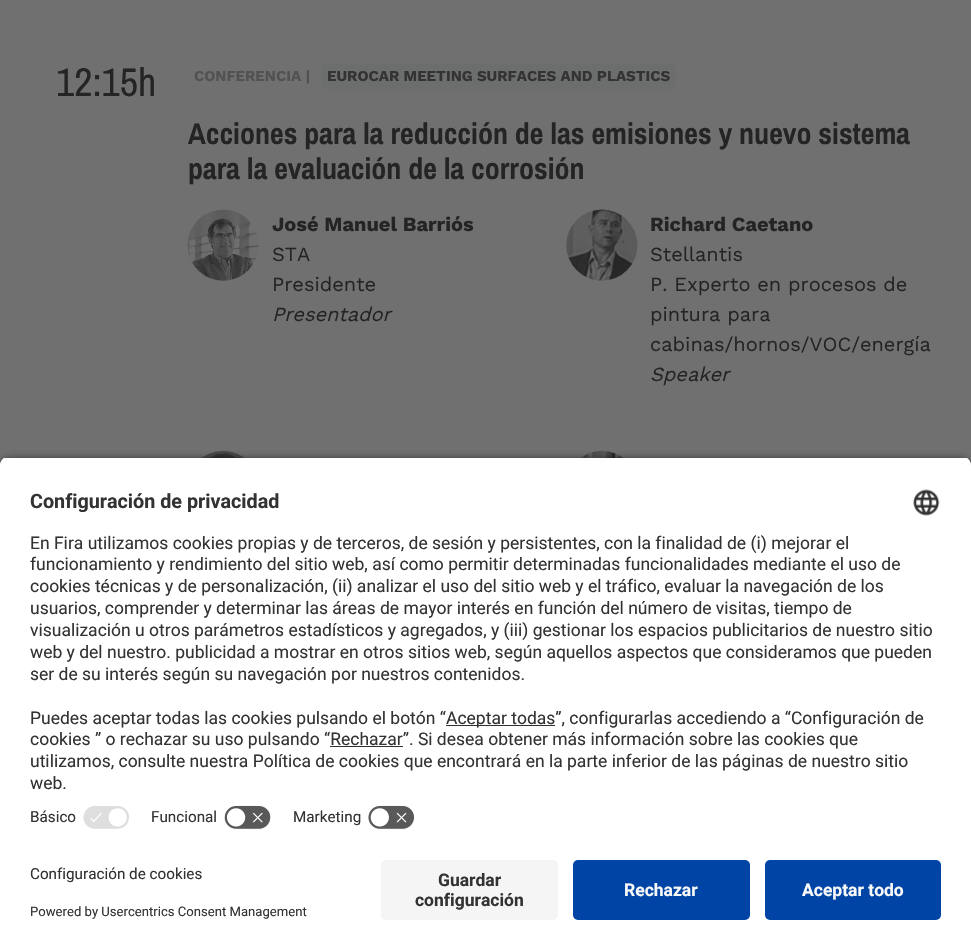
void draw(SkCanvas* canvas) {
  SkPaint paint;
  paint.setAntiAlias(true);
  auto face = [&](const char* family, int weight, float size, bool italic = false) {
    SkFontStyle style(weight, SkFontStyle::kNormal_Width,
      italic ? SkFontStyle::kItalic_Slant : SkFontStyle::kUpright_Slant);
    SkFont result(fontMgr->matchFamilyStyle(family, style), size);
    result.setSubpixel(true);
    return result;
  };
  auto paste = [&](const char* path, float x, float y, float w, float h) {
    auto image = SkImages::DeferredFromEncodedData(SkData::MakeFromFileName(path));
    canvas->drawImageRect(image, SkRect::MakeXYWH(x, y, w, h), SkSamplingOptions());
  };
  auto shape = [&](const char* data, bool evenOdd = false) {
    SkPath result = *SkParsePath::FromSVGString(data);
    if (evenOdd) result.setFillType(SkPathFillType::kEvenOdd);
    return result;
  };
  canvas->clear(0xff707070);
  paint.setColor(0xff6c6d6d);
  canvas->drawRoundRect(SkRect::MakeXYWH(321, 64, 355, 25), 5, 5, paint);
  paste("img/1.png", 187, 209, 72, 72);
  paste("img/2.png", 566, 209, 72, 72);
  paste("img/3.png", 201, 450, 44, 8);
  paste("img/4.png", 580, 450, 44, 8);
  paint.setColor(0xcc000000);
  paint.setMaskFilter(SkMaskFilter::MakeBlur(kNormal_SkBlurStyle, 4.5f));
  canvas->drawRoundRect(SkRect::MakeXYWH(0, 460, 971, 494), 10, 10, paint);
  paint.setMaskFilter(nullptr);
  canvas->save();
  canvas->clipPath(shape("M10 456H961C966.5 456 971 460.5 971 466V850H0V466C0 460.5 4.5 456 10 456Z"), true);
  paint.setColor(0xffffffff);
  canvas->drawRect(SkRect::MakeXYWH(0, 458, 971, 392), paint);
  canvas->drawRect(SkRect::MakeXYWH(0, 458, 971, 342), paint);
  canvas->restore();
  paste("img/5.png", 913, 489, 27, 27);
  paint.setColor(0xff303030);
  canvas->drawRect(SkRect::MakeXYWH(446, 725, 109, 1), paint);
  paste("img/6.png", 83, 806, 46, 23);
  paste("img/7.png", 224, 805, 47, 25);
  paste("img/8.png", 367, 805, 48, 25);
  paint.setColor(0xffffffff);
  canvas->drawRect(SkRect::MakeXYWH(0, 850, 971, 100), paint);
  paint.setColor(0xfff5f5f5);
  canvas->drawRoundRect(SkRect::MakeXYWH(381, 860, 177, 60), 5, 5, paint);
  paint.setColor(0xff0045a5);
  canvas->drawRoundRect(SkRect::MakeXYWH(573, 860, 177, 60), 5, 5, paint);
  canvas->drawRoundRect(SkRect::MakeXYWH(765, 860, 176, 60), 5, 5, paint);
  auto f0 = face("Archivo Narrow", 400, 40);
  paint.setColor(0xff242424);
  canvas->drawString("12:15h", 56, 96, f0, paint);
  auto f1 = face("Work Sans", 700, 15);
  paint.setColor(0xff525252);
  canvas->drawString("CONFERENCIA |", 194, 81, f1, paint);
  paint.setColor(0xff333333);
  canvas->drawString("EUROCAR MEETING SURFACES AND PLASTICS", 327, 81, f1, paint);
  auto f2 = face("Archivo Narrow", 700, 30);
  paint.setColor(0xff242424);
  canvas->drawString("Acciones para la reducción de las emisiones y nuevo sistema", 188, 144, f2, paint);
  canvas->drawString("para la evaluación de la corrosión", 188, 179, f2, paint);
  auto f3 = face("Work Sans", 700, 20);
  canvas->drawString("José Manuel Barriós", 272, 231, f3, paint);
  auto f4 = face("Work Sans", 400, 20);
  canvas->drawString("STA", 272, 261, f4, paint);
  canvas->drawString("Presidente", 272, 291, f4, paint);
  auto f5 = face("Work Sans", 400, 20, true);
  canvas->drawString("Presentador", 272, 321, f5, paint);
  canvas->drawString("Richard Caetano", 650, 231, f3, paint);
  {
    const struct { const char* s; float x, y; } items[] = {
      {"Stellantis", 650, 261},
      {"P. Experto en procesos de", 650, 291},
      {"pintura para", 650, 321},
      {"cabinas/hornos/VOC/energía", 650, 351},
    };
    for (auto [s, x, y] : items) {
      canvas->drawString(s, x, y, f4, paint);
    }
  }
  canvas->drawString("Speaker", 650, 381, f5, paint);
  auto f6 = face("Roboto", 700, 19.75f);
  paint.setColor(0xff333333);
  canvas->drawString("Configuración de privacidad", 30, 508, f6, paint);
  auto f7 = face("Roboto", 400, 17.5f);
  {
    const struct { const char* s; float x, y; } items[] = {
      {"En Fira utilizamos cookies propias y de terceros, de sesión y persistentes, con la finalidad de (i) mejorar el", 30, 549},
      {"funcionamiento y rendimiento del sitio web, así como permitir determinadas funcionalidades mediante el uso de", 30, 570},
      {"cookies técnicas y de personalización, (ii) analizar el uso del sitio web y el tráfico, evaluar la navegación de los", 30, 592},
      {"usuarios, comprender y determinar las áreas de mayor interés en función del número de visitas, tiempo de", 30, 614},
      {"visualización u otros parámetros estadísticos y agregados, y (iii) gestionar los espacios publicitarios de nuestro sitio", 30, 636},
      {"web y del nuestro. publicidad a mostrar en otros sitios web, según aquellos aspectos que consideramos que pueden", 30, 658},
      {"ser de su interés según su navegación por nuestros contenidos.", 30, 680},
      {"Puedes aceptar todas las cookies pulsando el botón “", 30, 724},
      {"Aceptar todas”, configurarlas accediendo a “Configuración de", 446, 724},
      {"cookies ” o rechazar su uso pulsando “Rechazar”. Si desea obtener más información sobre las cookies que", 30, 745},
    };
    for (auto [s, x, y] : items) {
      canvas->drawString(s, x, y, f7, paint);
    }
  }
  paint.setColor(0xff303030);
  canvas->drawRect(SkRect::MakeXYWH(330, 746, 73, 1), paint);
  paint.setColor(0xff333333);
  canvas->drawString("utilizamos, consulte nuestra Política de cookies que encontrará en la parte inferior de las páginas de nuestro sitio", 30, 767, f7, paint);
  canvas->drawString("web.", 30, 789, f7, paint);
  auto f8 = face("Roboto", 400, 15.25f);
  {
    const struct { const char* s; float x, y; } items[] = {
      {"Básico", 30, 822},
      {"Funcional", 151, 822},
      {"Marketing", 293, 822},
      {"Configuración de cookies", 30, 879},
    };
    for (auto [s, x, y] : items) {
      canvas->drawString(s, x, y, f8, paint);
    }
  }
  auto f9 = face("Roboto", 400, 13.1f);
  canvas->drawString("Powered by Usercentrics Consent Management", 30, 916, f9, paint);
  auto f10 = face("Roboto", 700, 17.5f);
  canvas->drawString("Guardar", 438, 886, f10, paint);
  canvas->drawString("configuración", 415, 906, f10, paint);
  paint.setColor(0xfffafafa);
  canvas->drawString("Rechazar", 624, 896, f10, paint);
  canvas->drawString("Aceptar todo", 802, 896, f10, paint);
}
